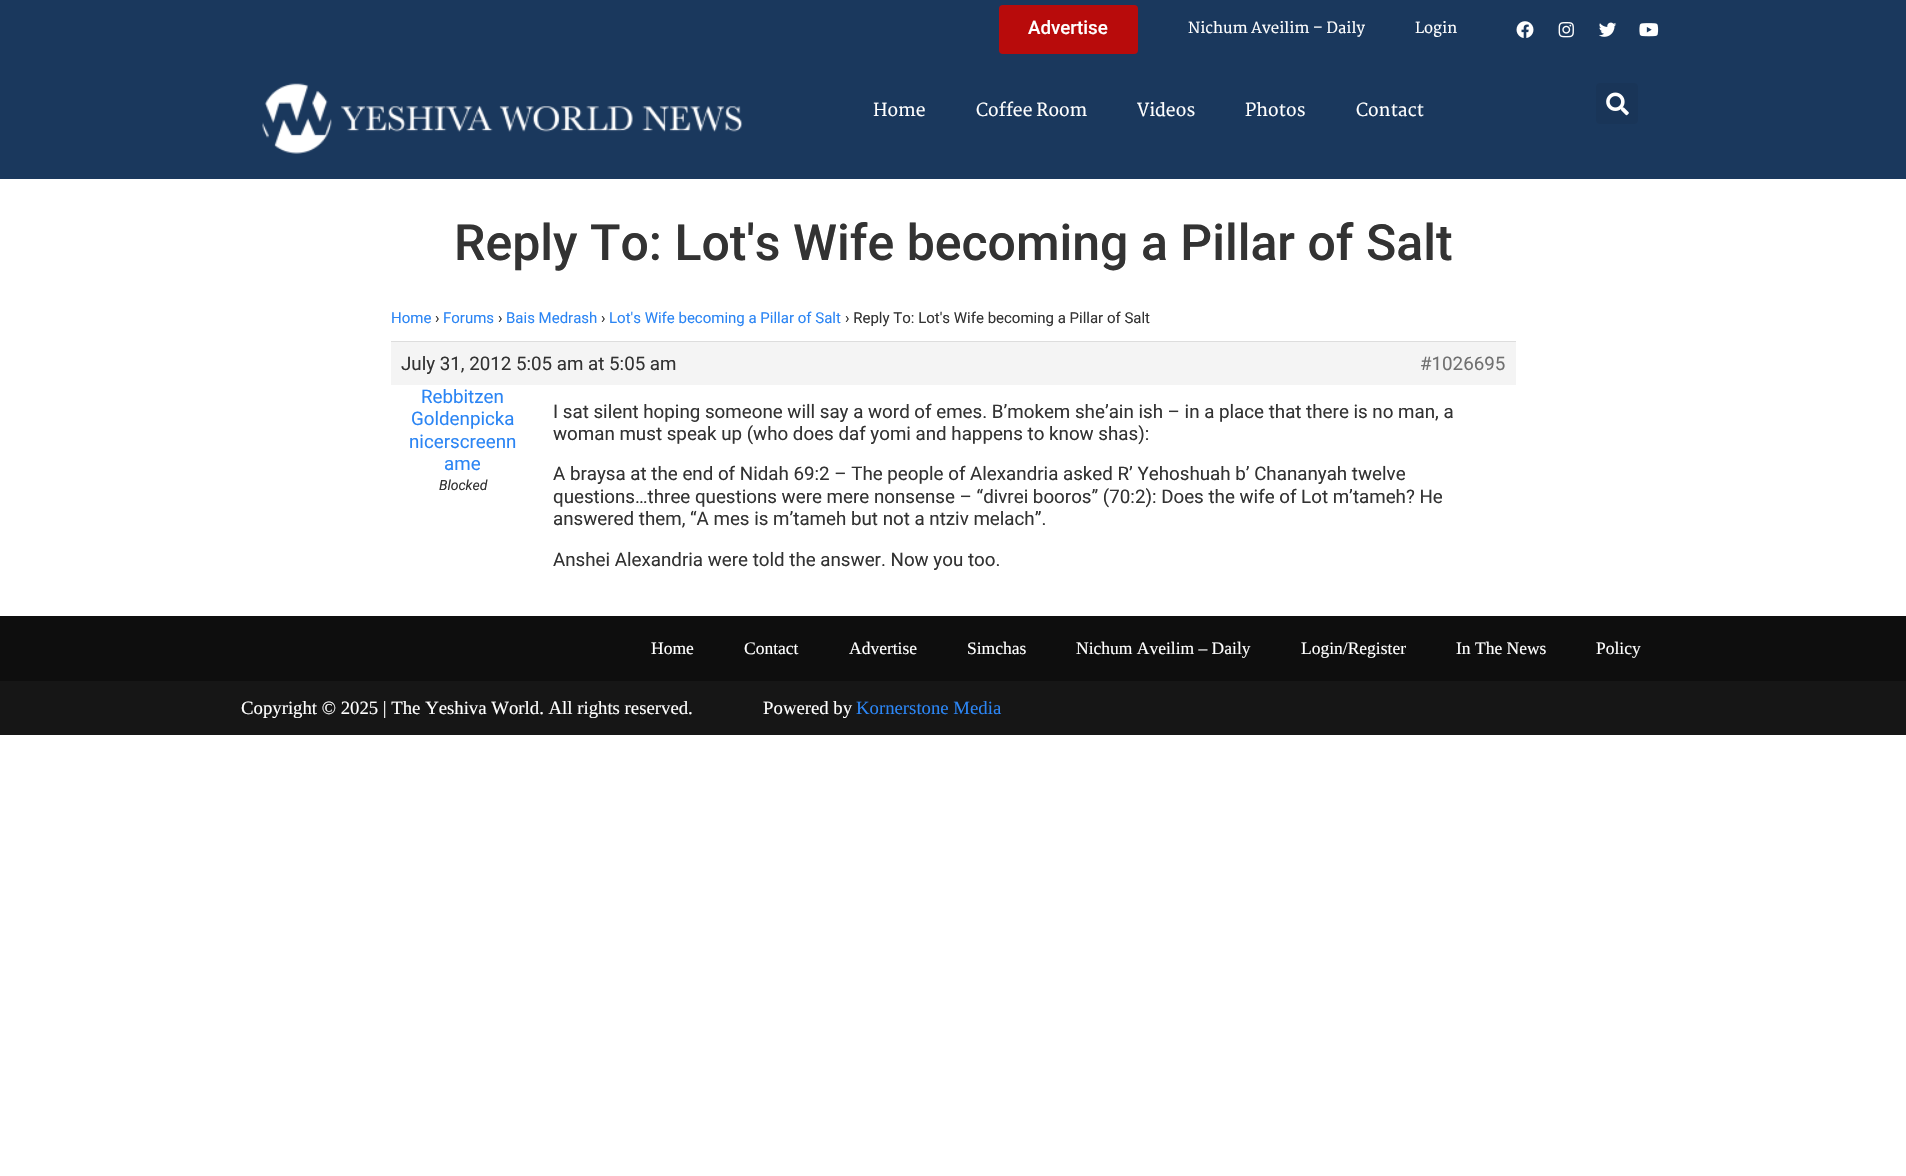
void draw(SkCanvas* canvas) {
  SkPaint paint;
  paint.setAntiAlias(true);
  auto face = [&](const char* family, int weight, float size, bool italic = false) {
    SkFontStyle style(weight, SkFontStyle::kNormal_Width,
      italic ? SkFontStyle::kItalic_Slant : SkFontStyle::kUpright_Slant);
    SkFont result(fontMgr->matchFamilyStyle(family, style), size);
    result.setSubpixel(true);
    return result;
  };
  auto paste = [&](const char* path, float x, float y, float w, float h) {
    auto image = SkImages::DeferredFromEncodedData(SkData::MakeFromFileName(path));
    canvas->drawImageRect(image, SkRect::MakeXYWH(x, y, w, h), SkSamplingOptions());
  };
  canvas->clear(0xffffffff);
  paint.setColor(0xff1a385d);
  canvas->drawRect(SkRect::MakeXYWH(0, 0, 1906, 179), paint);
  paint.setColor(0xffb80b0b);
  canvas->drawRoundRect(SkRect::MakeXYWH(999, 5, 139, 49), 4, 4, paint);
  paste("img/1.png", 1516, 21, 18, 17);
  paste("img/2.png", 1558, 22, 16, 16);
  paste("img/3.png", 1599, 22, 18, 15);
  paste("img/4.png", 1639, 23, 20, 14);
  paste("img/5.png", 262, 83, 481, 71);
  paint.setColor(0xff193558);
  canvas->drawRoundRect(SkRect::MakeXYWH(1596, 83, 42, 41), 4, 4, paint);
  paste("img/6.png", 1606, 92, 23, 24);
  {
    const struct { float x, y, w, h; SkColor color; } items[] = {
      {391, 342, 1125, 43, 0xfff4f4f4},
      {391, 341, 1125, 1, 0xffdddddd},
      {0, 616, 1906, 65, 0xff0e0e0e},
      {0, 681, 1906, 54, 0xff161616},
    };
    for (auto [x, y, w, h, color] : items) {
      paint.setColor(color);
      canvas->drawRect(SkRect::MakeXYWH(x, y, w, h), paint);
    }
  }
  auto f0 = face("Roboto", 500, 18.75f);
  paint.setColor(0xffffffff);
  canvas->drawString("Advertise", 1028, 34, f0, paint);
  auto f1 = face("Martel", 600, 15);
  canvas->drawString("Nichum Aveilim – Daily", 1188, 33, f1, paint);
  canvas->drawString("Login", 1415, 33, f1, paint);
  auto f2 = face("Martel", 600, 17.5f);
  {
    const struct { const char* s; float x, y; } items[] = {
      {"Home", 873, 116},
      {"Coffee Room", 976, 116},
      {"Videos", 1137, 116},
      {"Photos", 1245, 116},
      {"Contact", 1356, 116},
    };
    for (auto [s, x, y] : items) {
      canvas->drawString(s, x, y, f2, paint);
    }
  }
  auto f3 = face("Roboto", 500, 50);
  paint.setColor(0xff333333);
  canvas->drawString("Reply To: Lot's Wife becoming a Pillar of Salt", 454, 260, f3, paint);
  auto f4 = face("Roboto", 400, 15);
  paint.setColor(0xff2b85f4);
  canvas->drawString("Home", 391, 323, f4, paint);
  paint.setColor(0xff333333);
  canvas->drawString("›", 435, 323, f4, paint);
  paint.setColor(0xff2b85f4);
  canvas->drawString("Forums", 443, 323, f4, paint);
  paint.setColor(0xff333333);
  canvas->drawString("›", 498, 323, f4, paint);
  paint.setColor(0xff2b85f4);
  canvas->drawString("Bais Medrash", 506, 323, f4, paint);
  paint.setColor(0xff333333);
  canvas->drawString("›", 601, 323, f4, paint);
  paint.setColor(0xff2b85f4);
  canvas->drawString("Lot's Wife becoming a Pillar of Salt", 609, 323, f4, paint);
  paint.setColor(0xff333333);
  canvas->drawString("› Reply To: Lot's Wife becoming a Pillar of Salt", 845, 323, f4, paint);
  auto f5 = face("Roboto", 400, 18.75f);
  canvas->drawString("July 31, 2012 5:05 am at 5:05 am", 401, 370, f5, paint);
  paint.setColor(0xff707070);
  canvas->drawString("#1026695", 1420, 370, f5, paint);
  paint.setColor(0xff2b85f4);
  {
    const struct { const char* s; float x, y; } items[] = {
      {"Rebbitzen", 421, 403},
      {"Goldenpicka", 411, 425},
      {"nicerscreenn", 409, 448},
      {"ame", 444, 470},
    };
    for (auto [s, x, y] : items) {
      canvas->drawString(s, x, y, f5, paint);
    }
  }
  auto f6 = face("Roboto", 400, 14, true);
  paint.setColor(0xff333333);
  canvas->drawString("Blocked", 439, 490, f6, paint);
  {
    const struct { const char* s; float x, y; } items[] = {
      {"I sat silent hoping someone will say a word of emes. B’mokem she’ain ish – in a place that there is no man, a", 553, 418},
      {"woman must speak up (who does daf yomi and happens to know shas):", 553, 440},
      {"A braysa at the end of Nidah 69:2 – The people of Alexandria asked R’ Yehoshuah b’ Chananyah twelve", 553, 480},
      {"questions…three questions were mere nonsense – “divrei booros” (70:2): Does the wife of Lot m’tameh? He", 553, 503},
      {"answered them, “A mes is m’tameh but not a ntziv melach”.", 553, 525},
      {"Anshei Alexandria were told the answer. Now you too.", 553, 566},
    };
    for (auto [s, x, y] : items) {
      canvas->drawString(s, x, y, f5, paint);
    }
  }
  auto f7 = face("Liberation Serif", 400, 17.5f);
  paint.setColor(0xffffffff);
  {
    const struct { const char* s; float x, y; } items[] = {
      {"Home", 651, 654},
      {"Contact", 744, 654},
      {"Advertise", 849, 654},
      {"Simchas", 967, 654},
      {"Nichum Aveilim – Daily", 1076, 654},
      {"Login/Register", 1301, 654},
      {"In The News", 1456, 654},
      {"Policy", 1596, 654},
    };
    for (auto [s, x, y] : items) {
      canvas->drawString(s, x, y, f7, paint);
    }
  }
  auto f8 = face("Liberation Serif", 400, 18.75f);
  canvas->drawString("Copyright © 2025 | The Yeshiva World. All rights reserved.               Powered by", 241, 714, f8, paint);
  paint.setColor(0xff2b85f4);
  canvas->drawString("Kornerstone Media", 856, 714, f8, paint);
}
